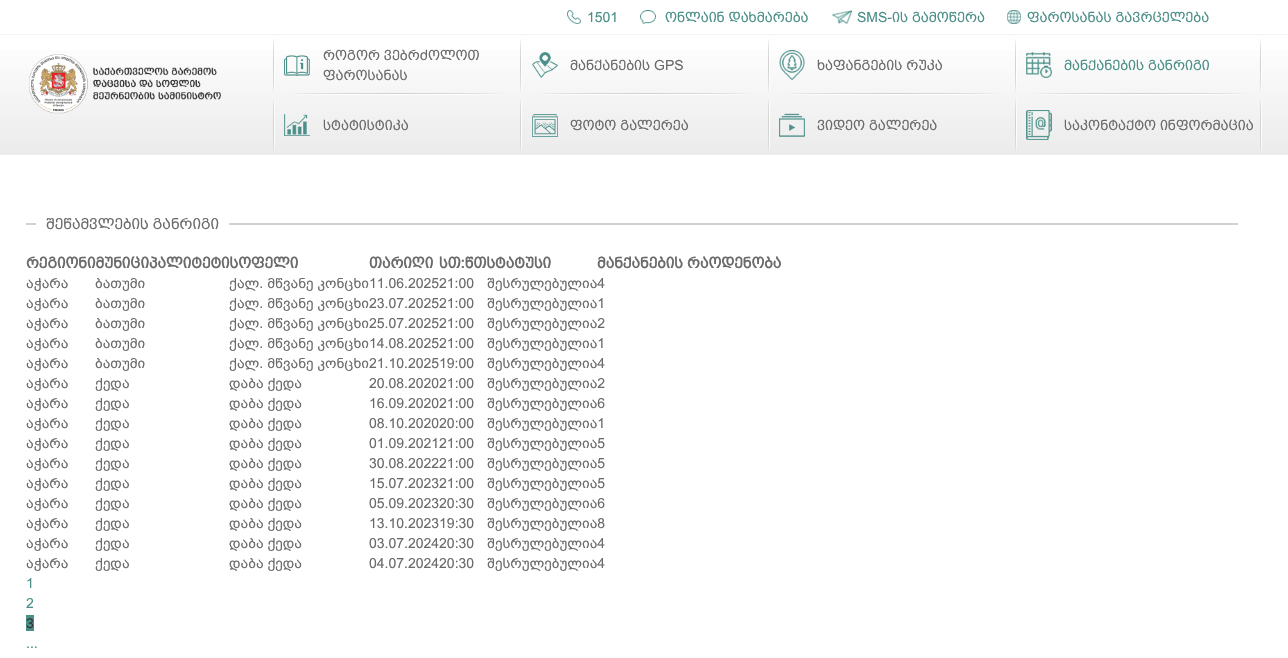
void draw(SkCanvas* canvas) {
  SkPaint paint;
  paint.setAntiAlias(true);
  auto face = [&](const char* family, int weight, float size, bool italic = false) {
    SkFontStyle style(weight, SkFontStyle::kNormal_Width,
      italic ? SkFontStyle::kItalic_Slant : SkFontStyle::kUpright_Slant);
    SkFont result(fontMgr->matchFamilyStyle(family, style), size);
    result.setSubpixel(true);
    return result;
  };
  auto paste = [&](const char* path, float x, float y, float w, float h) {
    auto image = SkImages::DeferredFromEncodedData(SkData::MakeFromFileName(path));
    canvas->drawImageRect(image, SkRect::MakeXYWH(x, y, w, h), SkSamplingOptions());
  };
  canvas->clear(0xffffffff);
  paste("img/1.png", 567, 10, 14, 14);
  paste("img/2.png", 640, 10, 16, 14);
  paste("img/3.png", 832, 10, 21, 14);
  paste("img/4.png", 1007, 10, 14, 14);
  {
    const SkColor colors[] = {0xffffffff, 0xffebebeb};
    const float stops[] = {0, 1};
    const SkPoint ends[] = {{644, 35}, {644, 155}};
    paint.setShader(SkGradientShader::MakeLinear(ends, colors, stops, 2, SkTileMode::kClamp));
    paint.setAlpha(255);
  }
  canvas->drawRect(SkRect::MakeXYWH(0, 50, 1288, 105), paint);
  paint.setShader(nullptr);
  paint.setColor(0xfff3f3f3);
  canvas->drawRect(SkRect::MakeXYWH(0, 34, 1288, 1), paint);
  paste("img/5.png", 29, 54, 192, 60);
  paste("img/6.png", 273, 39, 2, 53);
  paste("img/7.png", 284, 55, 26, 21);
  paste("img/8.png", 295, 93, 209, 2);
  paste("img/6.png", 520, 39, 2, 53);
  paste("img/9.png", 532, 52, 26, 26);
  paste("img/8.png", 542, 93, 209, 2);
  paste("img/6.png", 768, 39, 2, 53);
  paste("img/10.png", 779, 50, 26, 30);
  paste("img/8.png", 790, 93, 209, 2);
  paste("img/6.png", 1015, 39, 2, 53);
  paste("img/11.png", 1026, 52, 26, 26);
  paste("img/6.png", 1260, 39, 2, 53);
  paste("img/8.png", 1037, 93, 209, 2);
  paste("img/12.png", 273, 99, 2, 53);
  paste("img/13.png", 284, 114, 26, 22);
  paste("img/12.png", 520, 99, 2, 53);
  paste("img/14.png", 532, 114, 26, 23);
  paste("img/12.png", 768, 99, 2, 53);
  paste("img/15.png", 779, 113, 26, 24);
  paste("img/12.png", 1015, 99, 2, 53);
  paste("img/16.png", 1026, 110, 26, 30);
  paste("img/12.png", 1260, 99, 2, 53);
  {
    const struct { float x, y, w, h; SkColor color; } items[] = {
      {26, 223, 1212, 2, 0xffd1d1d1},
      {36, 223, 193, 2, 0xffffffff},
      {26, 615, 8, 16, 0xff4b8f88},
    };
    for (auto [x, y, w, h, color] : items) {
      paint.setColor(color);
      canvas->drawRect(SkRect::MakeXYWH(x, y, w, h), paint);
    }
  }
  auto f0 = face("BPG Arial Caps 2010", 400, 14);
  {
    const struct { const char* s; float x, y; } items[] = {
      {"1501", 587, 22},
      {"ონლაინ დახმარება", 665, 22},
      {"SMS-ის გამოწერა", 857, 22},
      {"ფაროსანას გავრცელება", 1027, 22},
    };
    for (auto [s, x, y] : items) {
      canvas->drawString(s, x, y, f0, paint);
    }
  }
  paint.setColor(0xff6a6a6a);
  {
    const struct { const char* s; float x, y; } items[] = {
      {"როგორ ვებრძოლოთ", 323, 60},
      {"ფაროსანას", 323, 80},
      {"მანქანების GPS", 570, 70},
      {"ხაფანგების რუკა", 817, 70},
    };
    for (auto [s, x, y] : items) {
      canvas->drawString(s, x, y, f0, paint);
    }
  }
  paint.setColor(0xff4b8f88);
  canvas->drawString("მანქანების განრიგი", 1064, 70, f0, paint);
  paint.setColor(0xff6a6a6a);
  {
    const struct { const char* s; float x, y; } items[] = {
      {"სტატისტიკა", 323, 130},
      {"ფოტო გალერეა", 570, 130},
      {"ვიდეო გალერეა", 817, 130},
      {"საკონტაქტო ინფორმაცია", 1064, 130},
    };
    for (auto [s, x, y] : items) {
      canvas->drawString(s, x, y, f0, paint);
    }
  }
  auto f1 = face("BPG Arial Caps 2010", 400, 15);
  canvas->drawString("შეწამვლების განრიგი", 46, 229, f1, paint);
  auto f2 = face("BPG Arial Caps 2010", 700, 15);
  {
    const struct { const char* s; float x, y; } items[] = {
      {"რეგიონიმუნიციპალიტეტისოფელი", 26, 268},
      {"თარიღი", 369, 268},
      {"სთ:წთსტატუსი", 439, 268},
      {"მანქანების რაოდენობა", 597, 268},
    };
    for (auto [s, x, y] : items) {
      canvas->drawString(s, x, y, f2, paint);
    }
  }
  auto f3 = face("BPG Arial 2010", 400, 14);
  {
    const struct { const char* s; float x, y; } items[] = {
      {"აჭარა", 26, 288},
      {"ბათუმი", 95, 288},
      {"ქალ. მწვანე კონცხი11.06.202521:00", 229, 288},
      {"შესრულებულია4", 487, 288},
      {"აჭარა", 26, 308},
      {"ბათუმი", 95, 308},
      {"ქალ. მწვანე კონცხი23.07.202521:00", 229, 308},
      {"შესრულებულია1", 487, 308},
      {"აჭარა", 26, 328},
      {"ბათუმი", 95, 328},
      {"ქალ. მწვანე კონცხი25.07.202521:00", 229, 328},
      {"შესრულებულია2", 487, 328},
      {"აჭარა", 26, 348},
      {"ბათუმი", 95, 348},
      {"ქალ. მწვანე კონცხი14.08.202521:00", 229, 348},
      {"შესრულებულია1", 487, 348},
      {"აჭარა", 26, 368},
      {"ბათუმი", 95, 368},
      {"ქალ. მწვანე კონცხი21.10.202519:00", 229, 368},
      {"შესრულებულია4", 487, 368},
      {"აჭარა", 26, 388},
      {"ქედა", 95, 388},
      {"დაბა ქედა", 229, 388},
      {"20.08.202021:00", 369, 388},
      {"შესრულებულია2", 487, 388},
      {"აჭარა", 26, 408},
      {"ქედა", 95, 408},
      {"დაბა ქედა", 229, 408},
      {"16.09.202021:00", 369, 408},
      {"შესრულებულია6", 487, 408},
      {"აჭარა", 26, 428},
      {"ქედა", 95, 428},
      {"დაბა ქედა", 229, 428},
      {"08.10.202020:00", 369, 428},
      {"შესრულებულია1", 487, 428},
      {"აჭარა", 26, 448},
      {"ქედა", 95, 448},
      {"დაბა ქედა", 229, 448},
      {"01.09.202121:00", 369, 448},
      {"შესრულებულია5", 487, 448},
      {"აჭარა", 26, 468},
      {"ქედა", 95, 468},
      {"დაბა ქედა", 229, 468},
      {"30.08.202221:00", 369, 468},
      {"შესრულებულია5", 487, 468},
      {"აჭარა", 26, 488},
      {"ქედა", 95, 488},
      {"დაბა ქედა", 229, 488},
      {"15.07.202321:00", 369, 488},
      {"შესრულებულია5", 487, 488},
      {"აჭარა", 26, 508},
      {"ქედა", 95, 508},
      {"დაბა ქედა", 229, 508},
      {"05.09.202320:30", 369, 508},
      {"შესრულებულია6", 487, 508},
      {"აჭარა", 26, 528},
      {"ქედა", 95, 528},
      {"დაბა ქედა", 229, 528},
      {"13.10.202319:30", 369, 528},
      {"შესრულებულია8", 487, 528},
      {"აჭარა", 26, 548},
      {"ქედა", 95, 548},
      {"დაბა ქედა", 229, 548},
      {"03.07.202420:30", 369, 548},
      {"შესრულებულია4", 487, 548},
      {"აჭარა", 26, 568},
      {"ქედა", 95, 568},
      {"დაბა ქედა", 229, 568},
      {"04.07.202420:30", 369, 568},
      {"შესრულებულია4", 487, 568},
    };
    for (auto [s, x, y] : items) {
      canvas->drawString(s, x, y, f3, paint);
    }
  }
  paint.setColor(0xff4b8f88);
  canvas->drawString("1", 26, 588, f0, paint);
  canvas->drawString("2", 26, 608, f0, paint);
  auto f4 = face("Liberation Sans", 400, 14);
  paint.setColor(0xff333333);
  canvas->drawString("3", 26, 628, f4, paint);
  paint.setColor(0xff4b8f88);
  canvas->drawString("...", 26, 648, f0, paint);
}
